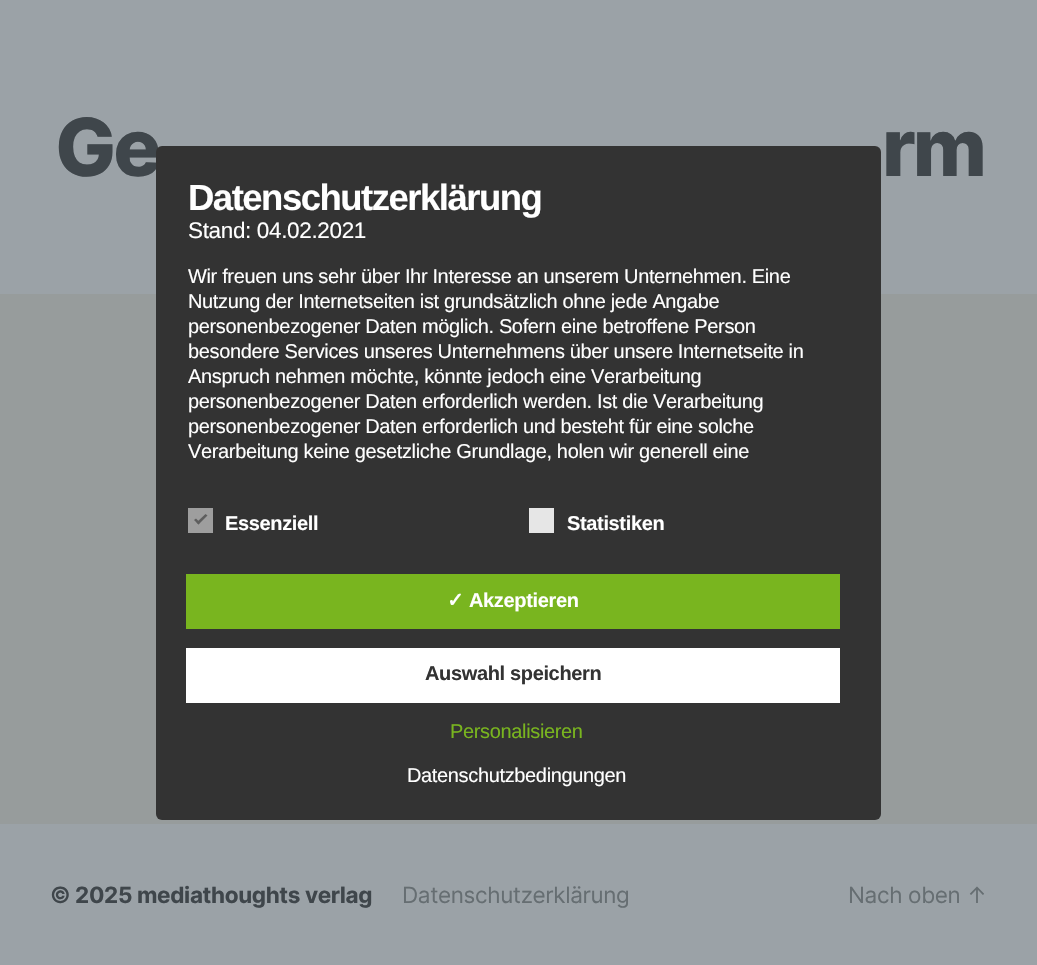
void draw(SkCanvas* canvas) {
  SkPaint paint;
  paint.setAntiAlias(true);
  auto face = [&](const char* family, int weight, float size, bool italic = false) {
    SkFontStyle style(weight, SkFontStyle::kNormal_Width,
      italic ? SkFontStyle::kItalic_Slant : SkFontStyle::kUpright_Slant);
    SkFont result(fontMgr->matchFamilyStyle(family, style), size);
    result.setSubpixel(true);
    return result;
  };
  auto writeSpaced = [&](const char* s, float x, float y, const SkFont& font, const SkPaint& ink, float letter, float word) {
    std::vector<SkGlyphID> glyphs(font.countText(s, strlen(s), SkTextEncoding::kUTF8));
    std::vector<float> xs(glyphs.size());
    font.textToGlyphs(s, strlen(s), SkTextEncoding::kUTF8, glyphs);
    font.getXPos(glyphs, xs, x);
    float extra = 0;
    for (size_t i = 0; i < glyphs.size(); i++) {
      xs[i] += extra;
      extra += letter + word * (glyphs[i] == font.unicharToGlyph(' '));
    }
    canvas->drawTextBlob(SkTextBlob::MakeFromPosHGlyphs(glyphs, xs, y, font), 0, 0, ink);
  };
  auto shape = [&](const char* data, bool evenOdd = false) {
    SkPath result = *SkParsePath::FromSVGString(data);
    if (evenOdd) result.setFillType(SkPathFillType::kEvenOdd);
    return result;
  };
  canvas->clear(0xff979c9c);
  paint.setColor(0xff9ba2a7);
  canvas->drawRect(SkRect::MakeXYWH(0, 0, 1037, 294), paint);
  canvas->drawRect(SkRect::MakeXYWH(0, 824, 1037, 141), paint);
  auto f0 = face("Inter", 800, 80);
  paint.setColor(0xff3f464b);
  writeSpaced("Ge", 55, 176, f0, paint, -3, 0);
  writeSpaced("rm", 882, 176, f0, paint, -3, 0);
  paint.setColor(0xff333333);
  canvas->drawRoundRect(SkRect::MakeXYWH(156, 146, 725, 674), 6, 6, paint);
  auto f1 = face("Liberation Sans", 700, 36.5f);
  paint.setColor(0xffffffff);
  writeSpaced("Datenschutzerklärung", 188, 210, f1, paint, -1.5f, 0);
  auto f2 = face("Liberation Sans", 400, 22.5f);
  writeSpaced("Stand: 04.02.2021", 188, 238, f2, paint, -0.35f, 0);
  auto f3 = face("Liberation Sans", 400, 20);
  {
    const struct { const char* s; float x, y; } items[] = {
      {"Wir freuen uns sehr über Ihr Interesse an unserem Unternehmen. Eine", 188, 283},
      {"Nutzung der Internetseiten ist grundsätzlich ohne jede Angabe", 188, 308},
      {"personenbezogener Daten möglich. Sofern eine betroffene Person", 188, 333},
      {"besondere Services unseres Unternehmens über unsere Internetseite in", 188, 358},
      {"Anspruch nehmen möchte, könnte jedoch eine Verarbeitung", 188, 383},
      {"personenbezogener Daten erforderlich werden. Ist die Verarbeitung", 188, 408},
      {"personenbezogener Daten erforderlich und besteht für eine solche", 188, 433},
      {"Verarbeitung keine gesetzliche Grundlage, holen wir generell eine", 188, 458},
    };
    for (auto [s, x, y] : items) {
      writeSpaced(s, x, y, f3, paint, -0.35f, 0);
    }
  }
  paint.setColor(0xff9e9e9e);
  canvas->drawRect(SkRect::MakeXYWH(188, 508, 25, 25), paint);
  paint.setColor(0xff5e5e5e);
  canvas->drawPath(shape("M205.5 514L207.5 515.5L198.5 524.5L196.5 522.5Z"), paint);
  canvas->drawPath(shape("M196 518.5L200 522.5L198.5 524.5L194 520Z"), paint);
  auto f4 = face("Liberation Sans", 700, 20);
  paint.setColor(0xffffffff);
  writeSpaced("Essenziell", 225, 530, f4, paint, -0.35f, 0);
  paint.setColor(0xffe6e6e6);
  canvas->drawRect(SkRect::MakeXYWH(529, 508, 25, 25), paint);
  paint.setColor(0xffffffff);
  writeSpaced("Statistiken", 567, 530, f4, paint, -0.35f, 0);
  paint.setColor(0xff79b51f);
  canvas->drawRect(SkRect::MakeXYWH(186, 574, 654, 55), paint);
  auto f5 = face("DejaVu Sans", 700, 20);
  paint.setColor(0xffffffff);
  writeSpaced("✓", 447, 607, f5, paint, -0.35f, 0);
  writeSpaced("Akzeptieren", 469, 607, f4, paint, -0.35f, 0);
  canvas->drawRect(SkRect::MakeXYWH(186, 648, 654, 55), paint);
  paint.setColor(0xff333333);
  writeSpaced("Auswahl speichern", 425, 680, f4, paint, -0.35f, 0);
  paint.setColor(0xff79b51f);
  writeSpaced("Personalisieren", 450, 738, f3, paint, -0.35f, 0);
  paint.setColor(0xffffffff);
  writeSpaced("Datenschutzbedingungen", 407, 782, f3, paint, -0.35f, 0);
  auto f6 = face("Inter", 700, 22.5f);
  paint.setColor(0xff3f464b);
  writeSpaced("© 2025 mediathoughts verlag", 50, 903, f6, paint, -0.35f, 0);
  auto f7 = face("Inter", 400, 22.5f);
  paint.setColor(0xff666e72);
  writeSpaced("Datenschutzerklärung", 402, 903, f7, paint, -0.35f, 0);
  writeSpaced("Nach oben ↑", 848, 903, f7, paint, -0.35f, 0);
}
